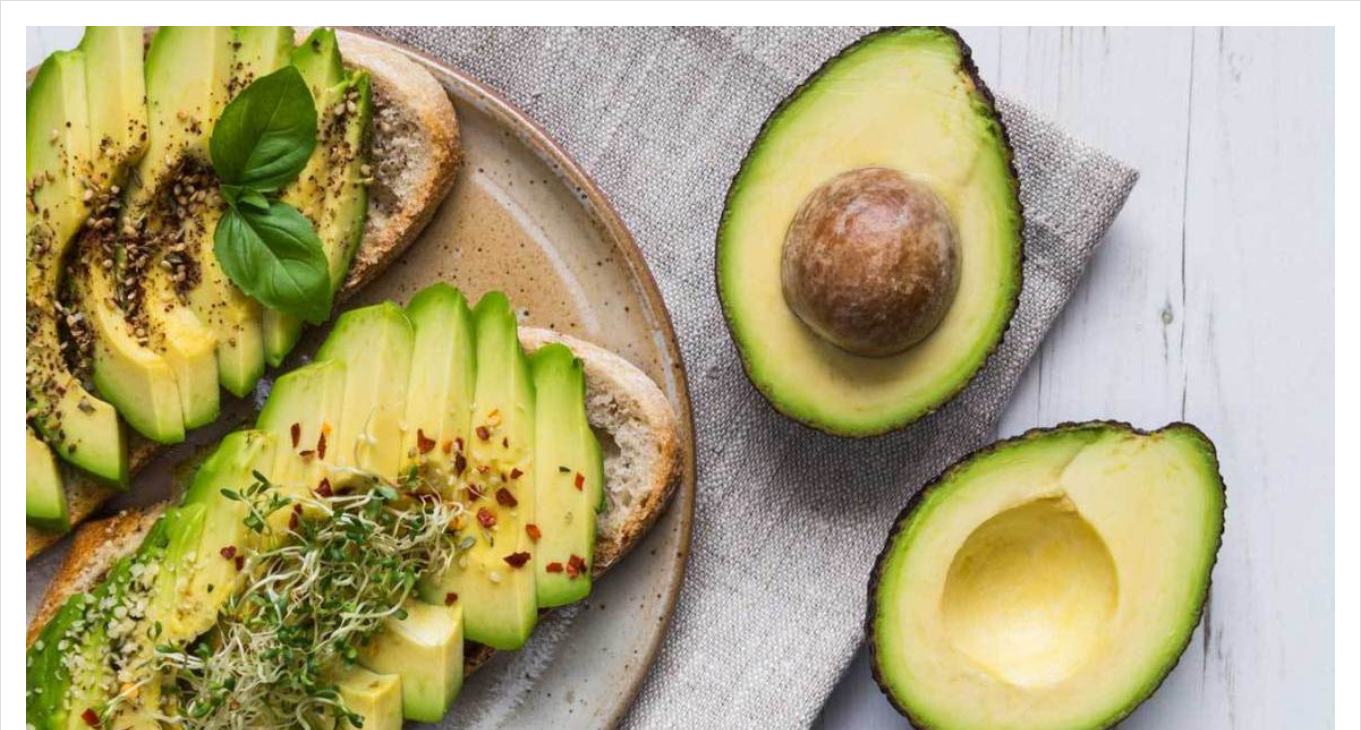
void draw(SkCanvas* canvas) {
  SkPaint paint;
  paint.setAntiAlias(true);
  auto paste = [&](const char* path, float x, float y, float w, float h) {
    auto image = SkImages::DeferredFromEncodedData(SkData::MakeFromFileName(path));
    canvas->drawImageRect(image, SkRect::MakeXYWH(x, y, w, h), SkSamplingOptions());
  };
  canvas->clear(0xffffffff);
  paint.setStroke(true);
  paint.setStrokeWidth(1);
  paint.setColor(0xffdcdcde);
  canvas->drawRect(SkRect::MakeXYWH(0.5f, 0.5f, 1360, 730), paint);
  paste("img/1.png", 26, 26, 1309, 704);
}
